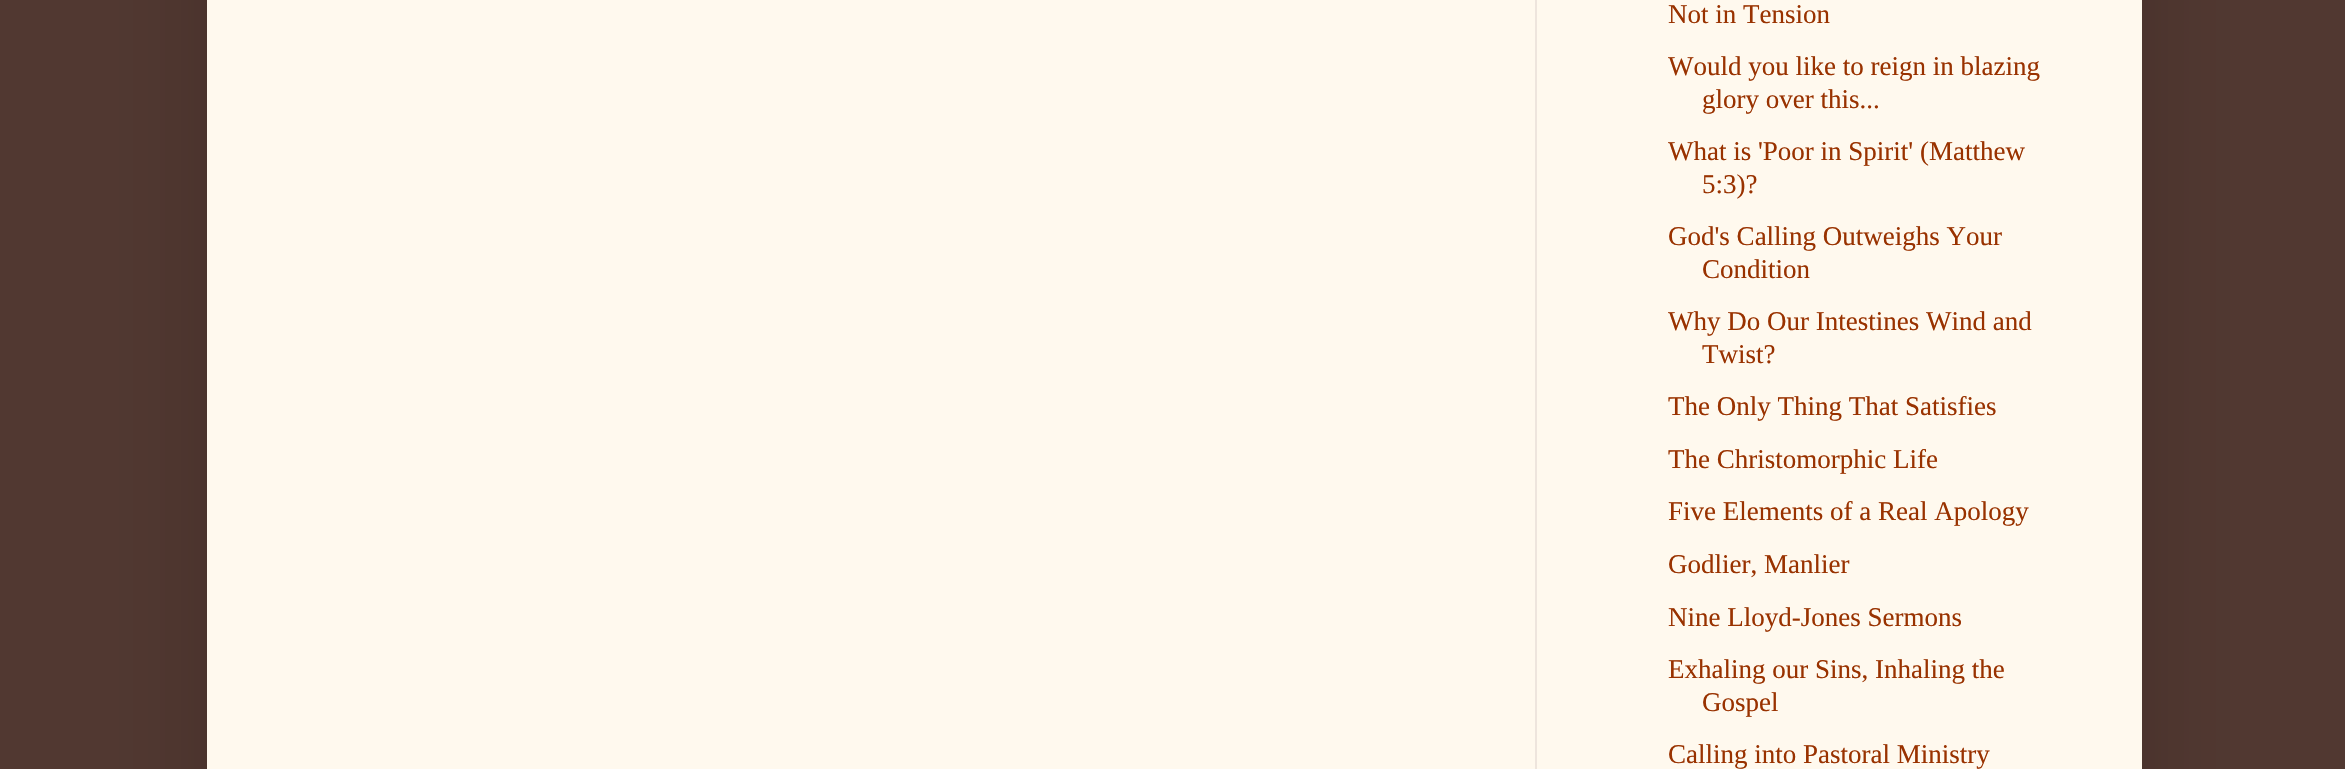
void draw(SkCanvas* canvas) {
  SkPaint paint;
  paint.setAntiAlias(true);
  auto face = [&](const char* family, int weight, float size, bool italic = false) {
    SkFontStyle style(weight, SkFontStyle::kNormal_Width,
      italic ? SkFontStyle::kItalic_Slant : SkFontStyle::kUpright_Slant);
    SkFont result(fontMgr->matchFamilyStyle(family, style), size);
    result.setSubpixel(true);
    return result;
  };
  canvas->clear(0xff513831);
  paint.setColor(0x26000000);
  paint.setMaskFilter(SkMaskFilter::MakeBlur(kNormal_SkBlurStyle, 45));
  canvas->drawRect(SkRect::MakeXYWH(207, -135, 1935, 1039), paint);
  paint.setMaskFilter(nullptr);
  paint.setColor(0xfffff9ee);
  canvas->drawRect(SkRect::MakeXYWH(207, 0, 1935, 769), paint);
  paint.setColor(0xffeee5dd);
  canvas->drawRect(SkRect::MakeXYWH(1535, 0, 2, 769), paint);
  auto f0 = face("Liberation Serif", 400, 27);
  paint.setColor(0xff993200);
  {
    const struct { const char* s; float x, y; } items[] = {
      {"Not in Tension", 1668, 23},
      {"Would you like to reign in blazing", 1668, 75},
      {"glory over this...", 1702, 108},
      {"What is 'Poor in Spirit' (Matthew", 1668, 160},
      {"5:3)?", 1702, 193},
      {"God's Calling Outweighs Your", 1668, 245},
      {"Condition", 1702, 278},
      {"Why Do Our Intestines Wind and", 1668, 330},
      {"Twist?", 1702, 363},
      {"The Only Thing That Satisfies", 1668, 415},
      {"The Christomorphic Life", 1668, 468},
      {"Five Elements of a Real Apology", 1668, 520},
      {"Godlier, Manlier", 1668, 573},
      {"Nine Lloyd-Jones Sermons", 1668, 626},
      {"Exhaling our Sins, Inhaling the", 1668, 678},
      {"Gospel", 1702, 711},
      {"Calling into Pastoral Ministry", 1668, 763},
    };
    for (auto [s, x, y] : items) {
      canvas->drawString(s, x, y, f0, paint);
    }
  }
}
